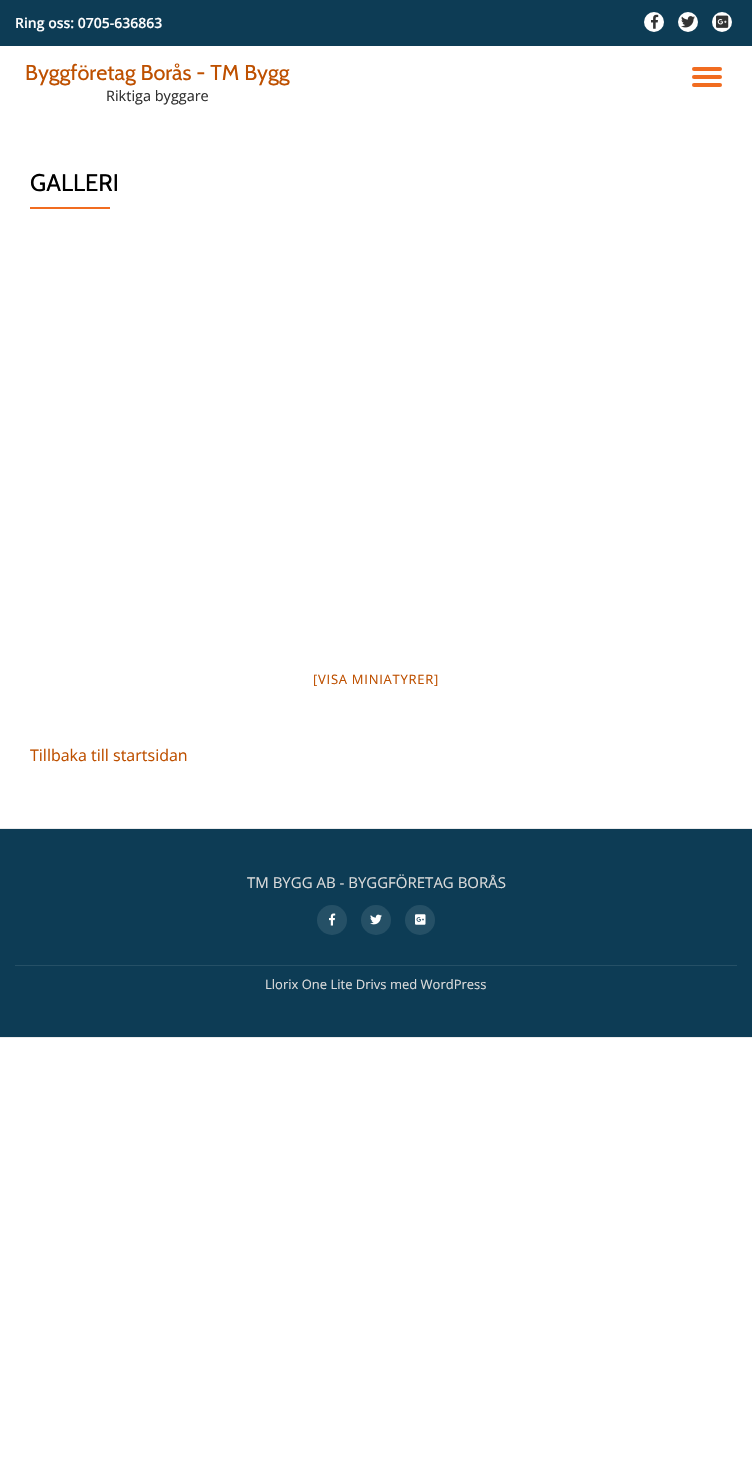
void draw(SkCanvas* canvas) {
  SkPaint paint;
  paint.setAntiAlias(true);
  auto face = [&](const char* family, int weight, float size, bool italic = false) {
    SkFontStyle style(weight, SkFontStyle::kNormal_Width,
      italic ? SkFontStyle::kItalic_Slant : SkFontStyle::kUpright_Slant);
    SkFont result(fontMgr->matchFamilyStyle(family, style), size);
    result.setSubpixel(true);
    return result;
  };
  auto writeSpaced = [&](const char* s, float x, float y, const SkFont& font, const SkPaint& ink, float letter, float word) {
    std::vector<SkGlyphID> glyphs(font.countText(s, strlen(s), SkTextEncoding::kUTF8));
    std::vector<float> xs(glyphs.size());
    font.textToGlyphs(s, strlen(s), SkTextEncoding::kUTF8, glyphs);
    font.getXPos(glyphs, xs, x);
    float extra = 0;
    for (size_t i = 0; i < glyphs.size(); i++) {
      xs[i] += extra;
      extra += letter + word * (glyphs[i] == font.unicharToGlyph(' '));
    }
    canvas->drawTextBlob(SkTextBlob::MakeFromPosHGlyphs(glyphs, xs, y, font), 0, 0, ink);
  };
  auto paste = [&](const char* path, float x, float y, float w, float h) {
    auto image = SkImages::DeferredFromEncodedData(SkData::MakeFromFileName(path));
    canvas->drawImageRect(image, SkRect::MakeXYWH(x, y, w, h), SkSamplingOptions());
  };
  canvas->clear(0xffffffff);
  paint.setColor(0xff0d3c55);
  canvas->drawRect(SkRect::MakeXYWH(0, 0, 752, 46), paint);
  paint.setColor(0xffffffff);
  canvas->drawCircle(654, 22, 10, paint);
  paste("img/1.png", 651, 14, 8, 15);
  canvas->drawCircle(688, 22, 10, paint);
  paste("img/2.png", 681, 16, 14, 12);
  canvas->drawCircle(722, 22, 10, paint);
  paste("img/3.png", 716, 15, 13, 13);
  paint.setColor(0xfff16c20);
  canvas->drawRoundRect(SkRect::MakeXYWH(692, 67, 30, 4), 2, 2, paint);
  canvas->drawRoundRect(SkRect::MakeXYWH(692, 75, 30, 4), 2, 2, paint);
  canvas->drawRoundRect(SkRect::MakeXYWH(692, 83, 30, 4), 2, 2, paint);
  {
    const struct { float x, y, w, h; SkColor color; } items[] = {
      {30, 207, 80, 2, 0xfff16c20},
      {0, 829, 752, 208, 0xff0d3c55},
      {0, 828, 752, 1, 0xffeaebec},
      {0, 1037, 752, 1, 0xffeaebec},
    };
    for (auto [x, y, w, h, color] : items) {
      paint.setColor(color);
      canvas->drawRect(SkRect::MakeXYWH(x, y, w, h), paint);
    }
  }
  paint.setColor(0xff255066);
  canvas->drawCircle(332, 920, 15, paint);
  paste("img/4.png", 329, 913, 7, 13);
  canvas->drawCircle(376, 920, 15, paint);
  paste("img/5.png", 370, 914, 12, 11);
  canvas->drawCircle(420, 920, 15, paint);
  paste("img/6.png", 415, 914, 11, 11);
  canvas->drawRect(SkRect::MakeXYWH(15, 965, 722, 1), paint);
  auto f0 = face("Open Sans", 600, 14);
  paint.setColor(0xffffffff);
  canvas->drawString("Ring oss: 0705-636863", 15, 28, f0, paint);
  auto f1 = face("Cabin", 400, 21.6f);
  paint.setColor(0xffbe5000);
  canvas->drawString("Byggföretag Borås - TM Bygg", 25, 80, f1, paint);
  auto f2 = face("Open Sans", 400, 14.5f);
  paint.setColor(0xff313131);
  canvas->drawString("Riktiga byggare", 106, 101, f2, paint);
  auto f3 = face("Cabin", 400, 24);
  paint.setColor(0xff000000);
  canvas->drawString("GALLERI", 30, 191, f3, paint);
  auto f4 = face("Open Sans", 400, 13);
  paint.setColor(0xffbe5000);
  writeSpaced("[VISA MINIATYRER]", 313, 684, f4, paint, 0.75f, 0);
  auto f5 = face("Open Sans", 400, 16);
  canvas->drawString("Tillbaka till startsidan", 30, 761, f5, paint);
  auto f6 = face("Open Sans", 400, 15);
  paint.setColor(0xffdbdbdb);
  canvas->drawString("TM BYGG AB - BYGGFÖRETAG BORÅS", 247, 888, f6, paint);
  canvas->drawString("Llorix One Lite Drivs med WordPress", 265, 989, f4, paint);
}
